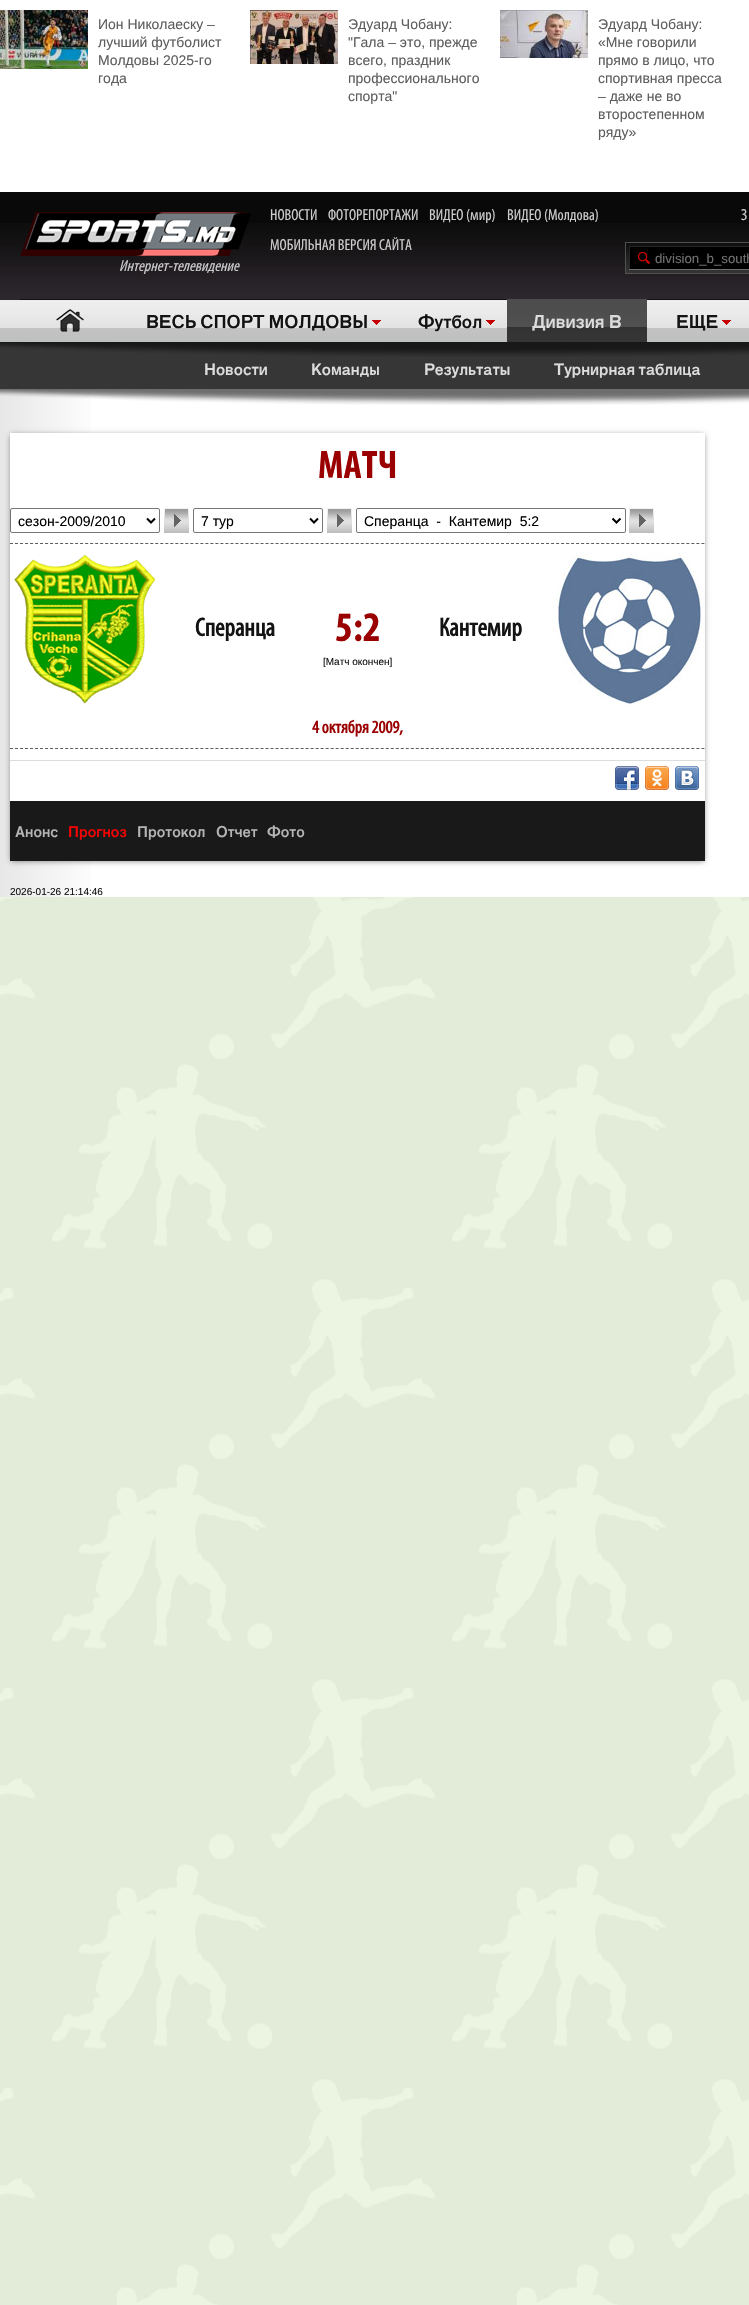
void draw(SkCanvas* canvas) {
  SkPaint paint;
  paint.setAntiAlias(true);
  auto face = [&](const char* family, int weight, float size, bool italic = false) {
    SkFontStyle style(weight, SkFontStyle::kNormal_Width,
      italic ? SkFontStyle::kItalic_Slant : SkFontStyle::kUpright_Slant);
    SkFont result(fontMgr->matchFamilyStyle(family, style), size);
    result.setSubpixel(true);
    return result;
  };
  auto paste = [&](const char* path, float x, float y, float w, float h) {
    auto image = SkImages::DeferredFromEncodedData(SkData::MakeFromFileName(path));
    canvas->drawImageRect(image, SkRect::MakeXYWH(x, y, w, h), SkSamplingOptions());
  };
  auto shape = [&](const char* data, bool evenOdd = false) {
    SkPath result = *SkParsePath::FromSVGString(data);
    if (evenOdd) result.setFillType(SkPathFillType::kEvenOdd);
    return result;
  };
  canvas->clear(0xffffffff);
  paste("img/1.png", 0, 897, 749, 1408);
  paste("img/2.png", 0, 10, 88, 59);
  paste("img/3.png", 250, 10, 88, 54);
  paste("img/4.png", 500, 10, 88, 48);
  paint.setColor(0xff090909);
  canvas->drawRect(SkRect::MakeXYWH(0, 192, 749, 31), paint);
  paste("img/5.png", 0, 223, 749, 119);
  paste("img/6.png", 20, 212, 231, 44);
  paste("img/7.png", 625, 242, 124, 32);
  paint.setColor(0xff111111);
  canvas->drawRect(SkRect::MakeXYWH(20, 299, 729, 1), paint);
  paste("img/8.png", 56, 309, 28, 23);
  paste("img/9.png", 372, 320, 9, 5);
  paste("img/9.png", 486, 320, 9, 5);
  paste("img/10.png", 507, 299, 140, 43);
  paste("img/9.png", 722, 320, 9, 5);
  paint.setColor(0xff363636);
  canvas->drawRect(SkRect::MakeXYWH(0, 342, 749, 47), paint);
  paste("img/11.png", 0, 342, 749, 15);
  {
    const SkColor colors[] = {0xffe7e7e7, 0xffffffff, 0xffffffff, 0xffe7e7e7};
    const float stops[] = {0, 0.1f, 0.9f, 1};
    const SkPoint ends[] = {{0, 643}, {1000, 643}};
    paint.setShader(SkGradientShader::MakeLinear(ends, colors, stops, 4, SkTileMode::kClamp));
    paint.setAlpha(255);
  }
  canvas->drawRect(SkRect::MakeXYWH(0, 389, 90, 508), paint);
  paste("img/12.png", 0, 389, 749, 16);
  paint.setShader(nullptr);
  paint.setColor(0x80000000);
  paint.setMaskFilter(SkMaskFilter::MakeBlur(kNormal_SkBlurStyle, 3));
  canvas->drawRect(SkRect::MakeXYWH(11, 435, 693, 426), paint);
  paint.setMaskFilter(nullptr);
  paint.setColor(0xffffffff);
  canvas->drawRect(SkRect::MakeXYWH(10, 433, 695, 368), paint);
  paint.setStroke(true);
  paint.setStrokeWidth(1);
  paint.setColor(0xff767676);
  canvas->drawRoundRect(SkRect::MakeXYWH(10.5f, 508.5f, 149, 24), 1.5f, 1.5f, paint);
  paint.setStrokeWidth(2);
  paint.setColor(0xff000000);
  canvas->drawPath(shape("M147 518.5L151 522.5L155 518.5"), paint);
  paste("img/13.png", 164, 508, 25, 25);
  paint.setStrokeWidth(1);
  paint.setColor(0xff767676);
  canvas->drawRoundRect(SkRect::MakeXYWH(193.5f, 508.5f, 129, 24), 1.5f, 1.5f, paint);
  paint.setStrokeWidth(2);
  paint.setColor(0xff000000);
  canvas->drawPath(shape("M310 518.5L314 522.5L318 518.5"), paint);
  paste("img/13.png", 327, 508, 25, 25);
  paint.setStrokeWidth(1);
  paint.setColor(0xff767676);
  canvas->drawRoundRect(SkRect::MakeXYWH(356.5f, 508.5f, 269, 24), 1.5f, 1.5f, paint);
  paint.setStrokeWidth(2);
  paint.setColor(0xff000000);
  canvas->drawPath(shape("M612.5 518.5L616.5 522.5L620.5 518.5"), paint);
  paste("img/13.png", 629, 508, 25, 25);
  paint.setStrokeWidth(1);
  paint.setColor(0xff5e5d5d);
  paint.setPathEffect(SkDashPathEffect::Make({{3, 2.01f}}, 0));
  canvas->drawPath(shape("M10 543.5H705"), paint);
  paint.setPathEffect(nullptr);
  paste("img/14.png", 14, 555, 141, 149);
  paste("img/15.png", 555, 555, 150, 150);
  paint.setPathEffect(SkDashPathEffect::Make({{3, 2.01f}}, 0));
  canvas->drawPath(shape("M10 748.5H705"), paint);
  paint.setPathEffect(nullptr);
  paint.setStroke(false);
  paint.setColor(0xffdddddd);
  canvas->drawRect(SkRect::MakeXYWH(10, 760, 695, 1), paint);
  paste("img/16.png", 615, 766, 24, 24);
  paste("img/17.png", 645, 766, 24, 24);
  paste("img/18.png", 675, 766, 24, 24);
  paint.setColor(0xff191919);
  canvas->drawRect(SkRect::MakeXYWH(10, 801, 695, 60), paint);
  auto f0 = face("Liberation Sans", 400, 14);
  paint.setColor(0xff5e5d5d);
  {
    const struct { const char* s; float x, y; } items[] = {
      {"Ион Николаеску –", 98, 29},
      {"лучший футболист", 98, 47},
      {"Молдовы 2025-го", 98, 65},
      {"года", 98, 83},
      {"Эдуард Чобану:", 348, 29},
      {"\"Гала – это, прежде", 348, 47},
      {"всего, праздник", 348, 65},
      {"профессионального", 348, 83},
      {"спорта\"", 348, 101},
      {"Эдуард Чобану:", 598, 29},
      {"«Мне говорили", 598, 47},
      {"прямо в лицо, что", 598, 65},
      {"спортивная пресса", 598, 83},
      {"– даже не во", 598, 101},
      {"второстепенном", 598, 119},
      {"ряду»", 598, 137},
    };
    for (auto [s, x, y] : items) {
      canvas->drawString(s, x, y, f0, paint);
    }
  }
  auto f1 = face("Myriad", 400, 16);
  paint.setColor(0xffcdcbcb);
  {
    const struct { const char* s; float x, y; } items[] = {
      {"НОВОСТИ", 270, 220},
      {"ФОТОРЕПОРТАЖИ", 328, 220},
      {"ВИДЕО (мир)", 429, 220},
      {"ВИДЕО (Молдова)", 507, 220},
      {"МОБИЛЬНАЯ ВЕРСИЯ САЙТА", 270, 250},
      {"З", 741, 220},
    };
    for (auto [s, x, y] : items) {
      canvas->drawString(s, x, y, f1, paint);
    }
  }
  auto f2 = face("Myriad", 400, 16, true);
  canvas->drawString("Интернет-телевидение", 119, 271, f2, paint);
  auto f3 = face("Liberation Sans", 400, 13.25f);
  paint.setColor(0xff737272);
  canvas->drawString("division_b_south", 655, 263, f3, paint);
  auto f4 = face("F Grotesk", 400, 18);
  paint.setColor(0xff131313);
  canvas->drawString("ВЕСЬ СПОРТ МОЛДОВЫ", 146, 328, f4, paint);
  canvas->drawString("Футбол", 418, 328, f4, paint);
  paint.setColor(0xffdcdcdc);
  canvas->drawString("Дивизия B", 532, 328, f4, paint);
  paint.setColor(0xff131313);
  canvas->drawString("ЕЩЕ", 676, 328, f4, paint);
  auto f5 = face("F Grotesk", 400, 16);
  paint.setColor(0xffdcdcdc);
  {
    const struct { const char* s; float x, y; } items[] = {
      {"Новости", 204, 375},
      {"Команды", 311, 375},
      {"Результаты", 424, 375},
      {"Турнирная таблица", 554, 375},
    };
    for (auto [s, x, y] : items) {
      canvas->drawString(s, x, y, f5, paint);
    }
  }
  auto f6 = face("Myriad", 700, 40);
  paint.setColor(0xff9a0000);
  canvas->drawString("МАТЧ", 318, 478, f6, paint);
  paint.setColor(0xff000000);
  {
    const struct { const char* s; float x, y; } items[] = {
      {"сезон-2009/2010", 18, 526},
      {"7 тур", 201, 526},
      {"Сперанца  -  Кантемир  5:2", 364, 526},
    };
    for (auto [s, x, y] : items) {
      canvas->drawString(s, x, y, f0, paint);
    }
  }
  auto f7 = face("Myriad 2", 700, 26);
  paint.setColor(0xff131313);
  canvas->drawString("Сперанца", 195, 636, f7, paint);
  auto f8 = face("Myriad", 700, 42);
  paint.setColor(0xff9a0000);
  canvas->drawString("5:2", 335, 641, f8, paint);
  paint.setColor(0xff131313);
  canvas->drawString("Кантемир", 439, 636, f7, paint);
  auto f9 = face("Liberation Sans", 400, 10);
  canvas->drawString("[Матч окончен]", 323, 665, f9, paint);
  auto f10 = face("Myriad 2", 700, 18);
  paint.setColor(0xff9a0000);
  canvas->drawString("4 октября 2009,", 312, 733, f10, paint);
  auto f11 = face("F Grotesk", 400, 15);
  paint.setColor(0xffb5b4b4);
  canvas->drawString("Анонс", 15, 837, f11, paint);
  paint.setColor(0xfff40303);
  canvas->drawString("Прогноз", 68, 837, f11, paint);
  paint.setColor(0xffb5b4b4);
  {
    const struct { const char* s; float x, y; } items[] = {
      {"Протокол", 137, 837},
      {"Отчет", 216, 837},
      {"Фото", 267, 837},
    };
    for (auto [s, x, y] : items) {
      canvas->drawString(s, x, y, f11, paint);
    }
  }
  paint.setColor(0xff131313);
  canvas->drawString("2026-01-26 21:14:46", 10, 895, f9, paint);
}
